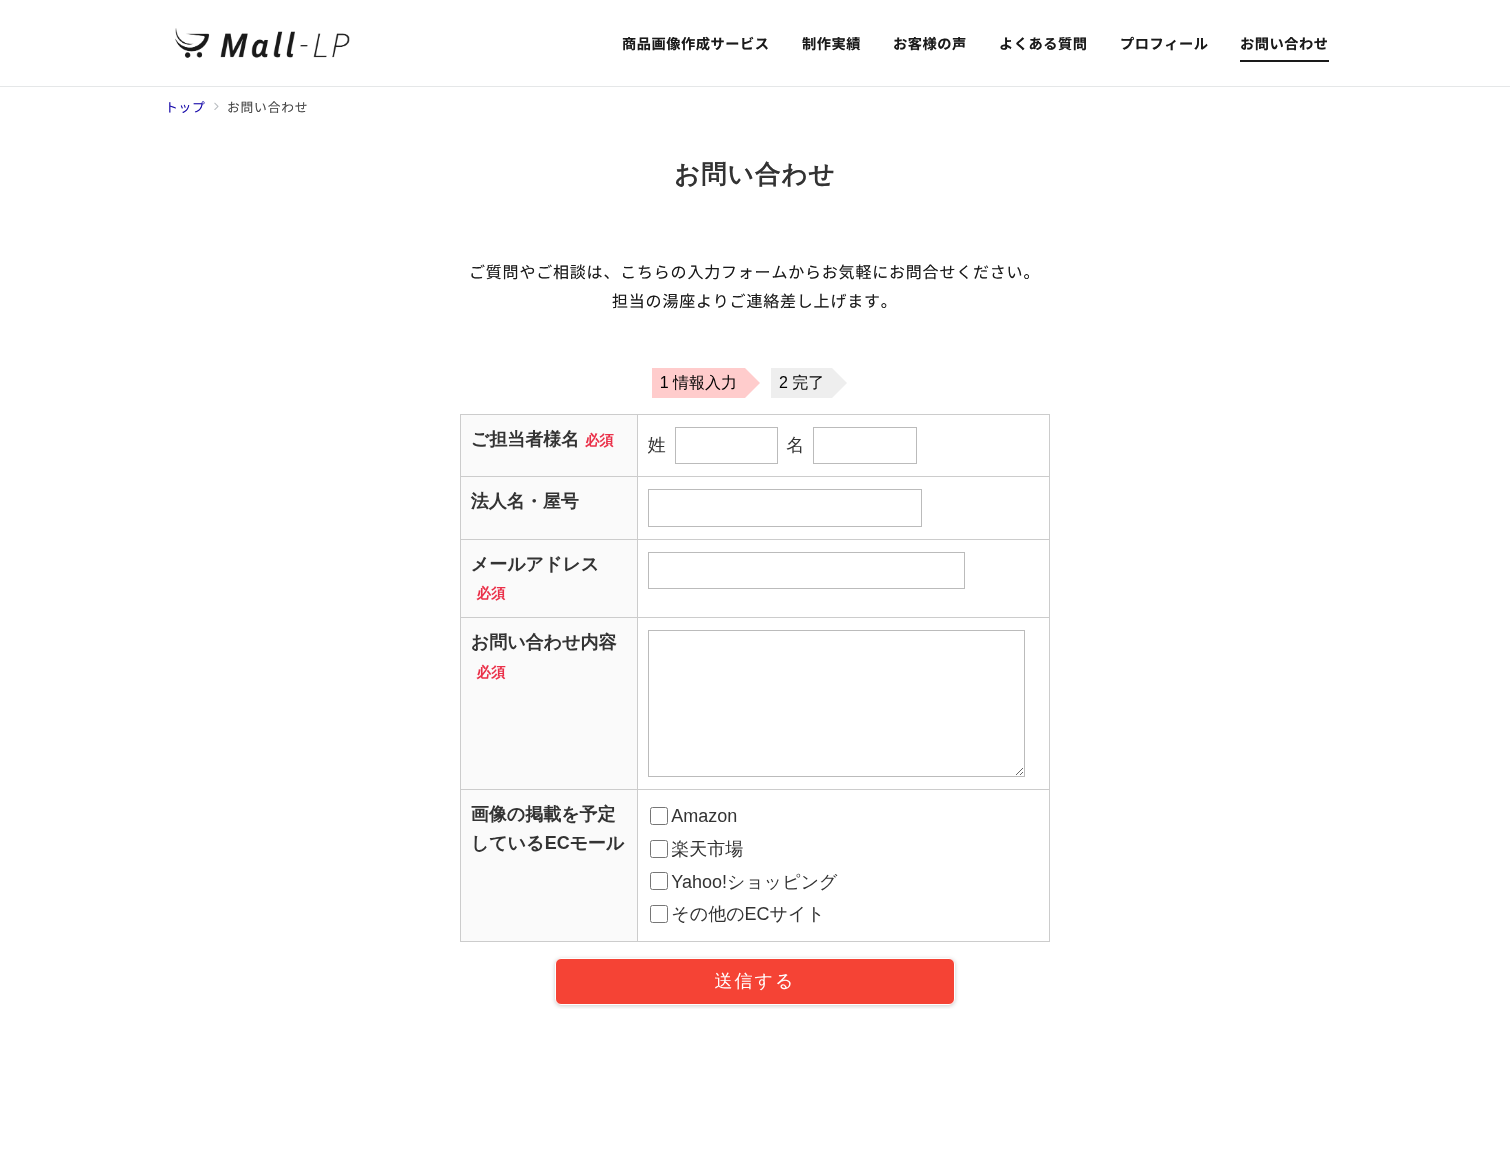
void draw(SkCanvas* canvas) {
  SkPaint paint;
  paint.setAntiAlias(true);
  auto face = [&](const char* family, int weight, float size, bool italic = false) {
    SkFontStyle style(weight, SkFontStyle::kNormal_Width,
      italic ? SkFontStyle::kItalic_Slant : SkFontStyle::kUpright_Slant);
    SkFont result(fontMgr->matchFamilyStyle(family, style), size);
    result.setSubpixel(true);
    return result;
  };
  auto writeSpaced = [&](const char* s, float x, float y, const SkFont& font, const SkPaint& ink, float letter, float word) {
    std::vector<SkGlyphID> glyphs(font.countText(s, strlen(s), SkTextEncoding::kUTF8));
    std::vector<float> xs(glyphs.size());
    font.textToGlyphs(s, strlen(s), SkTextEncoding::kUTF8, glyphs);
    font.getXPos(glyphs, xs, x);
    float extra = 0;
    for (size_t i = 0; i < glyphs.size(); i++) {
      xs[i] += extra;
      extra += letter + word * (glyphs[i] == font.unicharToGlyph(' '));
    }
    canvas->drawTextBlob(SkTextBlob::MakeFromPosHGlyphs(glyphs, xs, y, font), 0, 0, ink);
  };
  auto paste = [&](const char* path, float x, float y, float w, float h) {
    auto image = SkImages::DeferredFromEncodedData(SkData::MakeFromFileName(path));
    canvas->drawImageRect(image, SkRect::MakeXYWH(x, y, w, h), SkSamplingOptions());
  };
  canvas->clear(0xffffffff);
  paint.setColor(0xffe5e7e8);
  canvas->drawRect(SkRect::MakeXYWH(0, 86, 1510, 1), paint);
  paste("img/1.png", 175, 28, 175, 30);
  paint.setColor(0xff1a1a1a);
  canvas->drawRect(SkRect::MakeXYWH(1240, 60, 89, 2), paint);
  paste("img/2.png", 214, 102, 5, 8);
  paste("img/3.png", 460, 368, 590, 641);
  auto f0 = face("Noto Sans JP", 700, 14.25f);
  {
    const struct { const char* s; float x, y; } items[] = {
      {"商品画像作成サービス", 622, 49},
      {"制作実績", 802, 49},
      {"お客様の声", 893, 49},
      {"よくある質問", 999, 49},
      {"プロフィール", 1120, 49},
      {"お問い合わせ", 1240, 49},
    };
    for (auto [s, x, y] : items) {
      writeSpaced(s, x, y, f0, paint, 0.5f, 0);
    }
  }
  auto f1 = face("Noto Sans JP", 400, 12.75f);
  paint.setColor(0xff1a0dab);
  writeSpaced("トップ", 165, 112, f1, paint, 0.8f, 0);
  paint.setColor(0xff484848);
  writeSpaced("お問い合わせ", 227, 112, f1, paint, 0.8f, 0);
  auto f2 = face("WenQuanYi Zen Hei", 700, 25.5f);
  paint.setColor(0xff333333);
  writeSpaced("お問い合わせ", 674, 183, f2, paint, 1, 0);
  auto f3 = face("Noto Sans JP", 400, 16);
  paint.setColor(0xff1a1a1a);
  writeSpaced("ご質問やご相談は、こちらの入力フォームからお気軽にお問合せください。", 469, 278, f3, paint, 0.8f, 0);
  writeSpaced("担当の湯座よりご連絡差し上げます。", 612, 307, f3, paint, 0.8f, 0);
}
